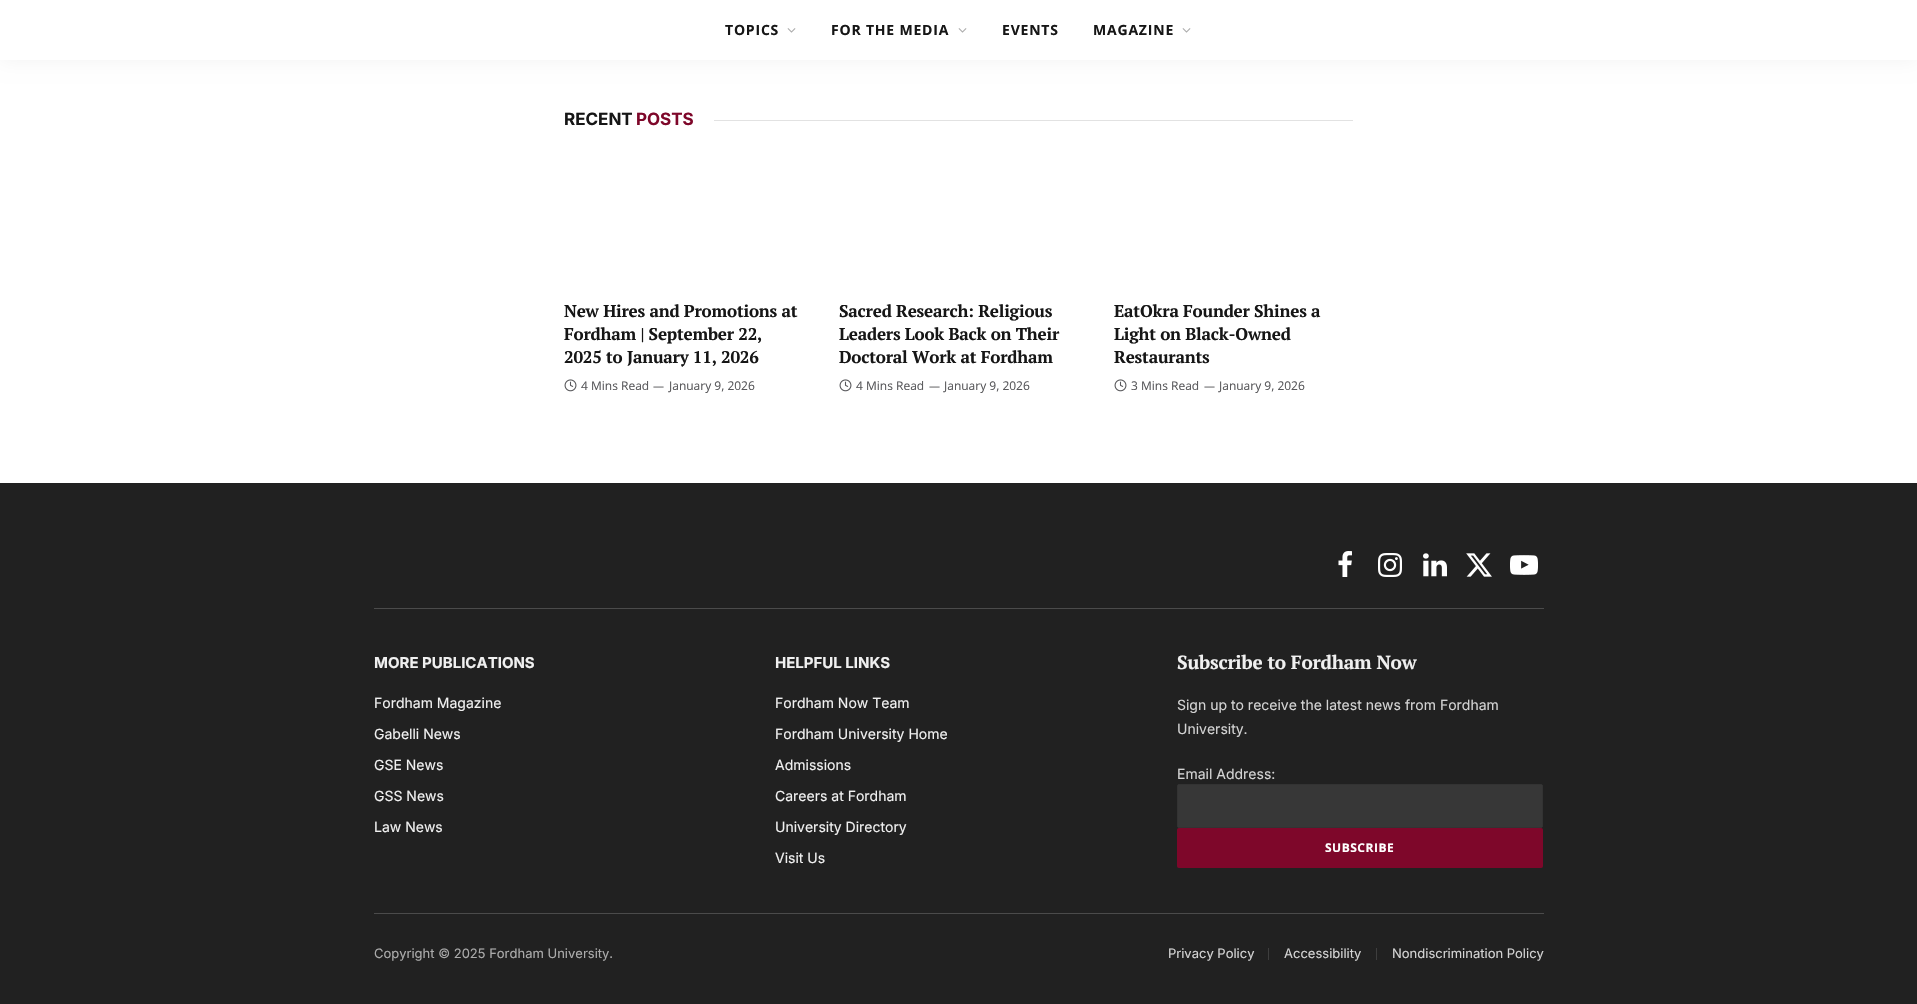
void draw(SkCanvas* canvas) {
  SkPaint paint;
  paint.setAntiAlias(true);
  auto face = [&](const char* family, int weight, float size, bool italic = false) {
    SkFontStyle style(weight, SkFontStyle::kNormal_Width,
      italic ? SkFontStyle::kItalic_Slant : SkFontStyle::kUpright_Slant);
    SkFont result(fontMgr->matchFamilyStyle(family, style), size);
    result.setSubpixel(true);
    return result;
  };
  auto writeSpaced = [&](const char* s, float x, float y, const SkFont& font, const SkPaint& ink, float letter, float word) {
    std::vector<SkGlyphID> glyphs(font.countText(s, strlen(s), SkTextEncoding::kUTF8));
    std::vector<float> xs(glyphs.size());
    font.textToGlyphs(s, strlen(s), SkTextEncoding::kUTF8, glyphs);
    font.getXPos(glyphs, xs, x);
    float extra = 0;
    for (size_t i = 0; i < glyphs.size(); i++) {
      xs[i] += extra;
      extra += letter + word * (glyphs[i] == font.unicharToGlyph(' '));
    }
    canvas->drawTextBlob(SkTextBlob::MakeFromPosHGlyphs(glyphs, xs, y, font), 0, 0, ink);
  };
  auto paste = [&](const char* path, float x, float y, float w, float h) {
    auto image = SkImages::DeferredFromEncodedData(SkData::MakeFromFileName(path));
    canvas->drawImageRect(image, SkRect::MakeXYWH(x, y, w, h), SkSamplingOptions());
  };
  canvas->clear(0xffffffff);
  paint.setColor(0x0d000000);
  paint.setMaskFilter(SkMaskFilter::MakeBlur(kNormal_SkBlurStyle, 10));
  canvas->drawRect(SkRect::MakeXYWH(0, 0, 1917, 60), paint);
  paint.setMaskFilter(nullptr);
  paint.setColor(0xffffffff);
  canvas->drawRect(SkRect::MakeXYWH(0, 0, 1917, 60), paint);
  paste("img/1.png", 787, 28, 9, 5);
  paste("img/1.png", 958, 28, 9, 5);
  paste("img/1.png", 1182, 28, 9, 5);
  paint.setColor(0xffe2e2e2);
  canvas->drawRect(SkRect::MakeXYWH(714, 120, 639, 1), paint);
  paste("img/2.png", 564, 379, 13, 13);
  paste("img/2.png", 839, 379, 13, 13);
  paste("img/2.png", 1114, 379, 13, 13);
  paint.setColor(0xff212121);
  canvas->drawRect(SkRect::MakeXYWH(0, 483, 1917, 521), paint);
  paste("img/3.png", 1338, 551, 14, 26);
  paste("img/4.png", 1378, 553, 24, 24);
  paste("img/5.png", 1423, 553, 24, 24);
  paste("img/6.png", 1466, 553, 26, 24);
  paste("img/7.png", 1510, 555, 28, 20);
  paint.setColor(0xff4b4b4b);
  canvas->drawRect(SkRect::MakeXYWH(374, 608, 1170, 1), paint);
  paint.setColor(0xff373737);
  canvas->drawRoundRect(SkRect::MakeXYWH(1177.5f, 784.5f, 365, 43), 1.5f, 1.5f, paint);
  paint.setStroke(true);
  paint.setStrokeWidth(1);
  paint.setColor(0xff333333);
  canvas->drawRoundRect(SkRect::MakeXYWH(1177.5f, 784.5f, 365, 43), 1.5f, 1.5f, paint);
  paint.setStroke(false);
  paint.setColor(0xff7e072a);
  canvas->drawRoundRect(SkRect::MakeXYWH(1177, 828, 366, 40), 2, 2, paint);
  {
    const struct { float x, y, w, h; SkColor color; } items[] = {
      {374, 913, 1170, 1, 0xff4b4b4b},
      {1268, 948, 1, 12, 0xff3e3e3e},
      {1376, 948, 1, 12, 0xff3e3e3e},
    };
    for (auto [x, y, w, h, color] : items) {
      paint.setColor(color);
      canvas->drawRect(SkRect::MakeXYWH(x, y, w, h), paint);
    }
  }
  auto f0 = face("Open Sans", 700, 14);
  paint.setColor(0xff161616);
  {
    const struct { const char* s; float x, y; } items[] = {
      {"TOPICS", 725, 35},
      {"FOR THE MEDIA", 831, 35},
      {"EVENTS", 1002, 35},
      {"MAGAZINE", 1093, 35},
    };
    for (auto [s, x, y] : items) {
      writeSpaced(s, x, y, f0, paint, 0.8f, 0);
    }
  }
  auto f1 = face("Inter", 700, 17);
  canvas->drawString("RECENT", 564, 125, f1, paint);
  paint.setColor(0xff7e072a);
  canvas->drawString("POSTS", 636, 125, f1, paint);
  auto f2 = face("PT Serif", 700, 17);
  paint.setColor(0xff161616);
  {
    const struct { const char* s; float x, y; } items[] = {
      {"New Hires and Promotions at", 564, 317},
      {"Fordham | September 22,", 564, 340},
      {"2025 to January 11, 2026", 564, 363},
    };
    for (auto [s, x, y] : items) {
      writeSpaced(s, x, y, f2, paint, -0.2f, 0);
    }
  }
  auto f3 = face("Open Sans", 400, 12);
  paint.setColor(0xff58585b);
  canvas->drawString("4 Mins Read", 581, 390, f3, paint);
  auto f4 = face("Open Sans", 400, 11);
  canvas->drawString("—", 653, 390, f4, paint);
  canvas->drawString("January 9, 2026", 669, 390, f3, paint);
  paint.setColor(0xff161616);
  {
    const struct { const char* s; float x, y; } items[] = {
      {"Sacred Research: Religious", 839, 317},
      {"Leaders Look Back on Their", 839, 340},
      {"Doctoral Work at Fordham", 839, 363},
    };
    for (auto [s, x, y] : items) {
      writeSpaced(s, x, y, f2, paint, -0.2f, 0);
    }
  }
  paint.setColor(0xff58585b);
  canvas->drawString("4 Mins Read", 856, 390, f3, paint);
  canvas->drawString("—", 929, 390, f4, paint);
  canvas->drawString("January 9, 2026", 944, 390, f3, paint);
  paint.setColor(0xff161616);
  {
    const struct { const char* s; float x, y; } items[] = {
      {"EatOkra Founder Shines a", 1114, 317},
      {"Light on Black-Owned", 1114, 340},
      {"Restaurants", 1114, 363},
    };
    for (auto [s, x, y] : items) {
      writeSpaced(s, x, y, f2, paint, -0.2f, 0);
    }
  }
  paint.setColor(0xff58585b);
  canvas->drawString("3 Mins Read", 1131, 390, f3, paint);
  canvas->drawString("—", 1204, 390, f4, paint);
  canvas->drawString("January 9, 2026", 1219, 390, f3, paint);
  auto f5 = face("Inter", 700, 15);
  paint.setColor(0xfff0f0f0);
  canvas->drawString("MORE PUBLICATIONS", 374, 668, f5, paint);
  auto f6 = face("Inter", 400, 14);
  {
    const struct { const char* s; float x, y; } items[] = {
      {"Fordham Magazine", 374, 708},
      {"Gabelli News", 374, 739},
      {"GSE News", 374, 770},
      {"GSS News", 374, 801},
      {"Law News", 374, 832},
    };
    for (auto [s, x, y] : items) {
      canvas->drawString(s, x, y, f6, paint);
    }
  }
  canvas->drawString("HELPFUL LINKS", 775, 668, f5, paint);
  {
    const struct { const char* s; float x, y; } items[] = {
      {"Fordham Now Team", 775, 708},
      {"Fordham University Home", 775, 739},
      {"Admissions", 775, 770},
      {"Careers at Fordham", 775, 801},
      {"University Directory", 775, 832},
      {"Visit Us", 775, 863},
    };
    for (auto [s, x, y] : items) {
      canvas->drawString(s, x, y, f6, paint);
    }
  }
  auto f7 = face("PT Serif", 700, 19);
  writeSpaced("Subscribe to Fordham Now", 1177, 669, f7, paint, -0.2f, 0);
  paint.setColor(0xffd3d3d3);
  {
    const struct { const char* s; float x, y; } items[] = {
      {"Sign up to receive the latest news from Fordham", 1177, 710},
      {"University.", 1177, 734},
      {"Email Address:", 1177, 779},
    };
    for (auto [s, x, y] : items) {
      canvas->drawString(s, x, y, f6, paint);
    }
  }
  auto f8 = face("Open Sans", 700, 12);
  paint.setColor(0xffffffff);
  writeSpaced("SUBSCRIBE", 1325, 852, f8, paint, 0.5f, 0);
  auto f9 = face("Inter", 400, 13);
  paint.setColor(0xffababab);
  canvas->drawString("Copyright © 2025 Fordham University.", 374, 958, f9, paint);
  paint.setColor(0xffd3d3d3);
  {
    const struct { const char* s; float x, y; } items[] = {
      {"Privacy Policy", 1168, 958},
      {"Accessibility", 1284, 958},
      {"Nondiscrimination Policy", 1392, 958},
    };
    for (auto [s, x, y] : items) {
      canvas->drawString(s, x, y, f9, paint);
    }
  }
}
